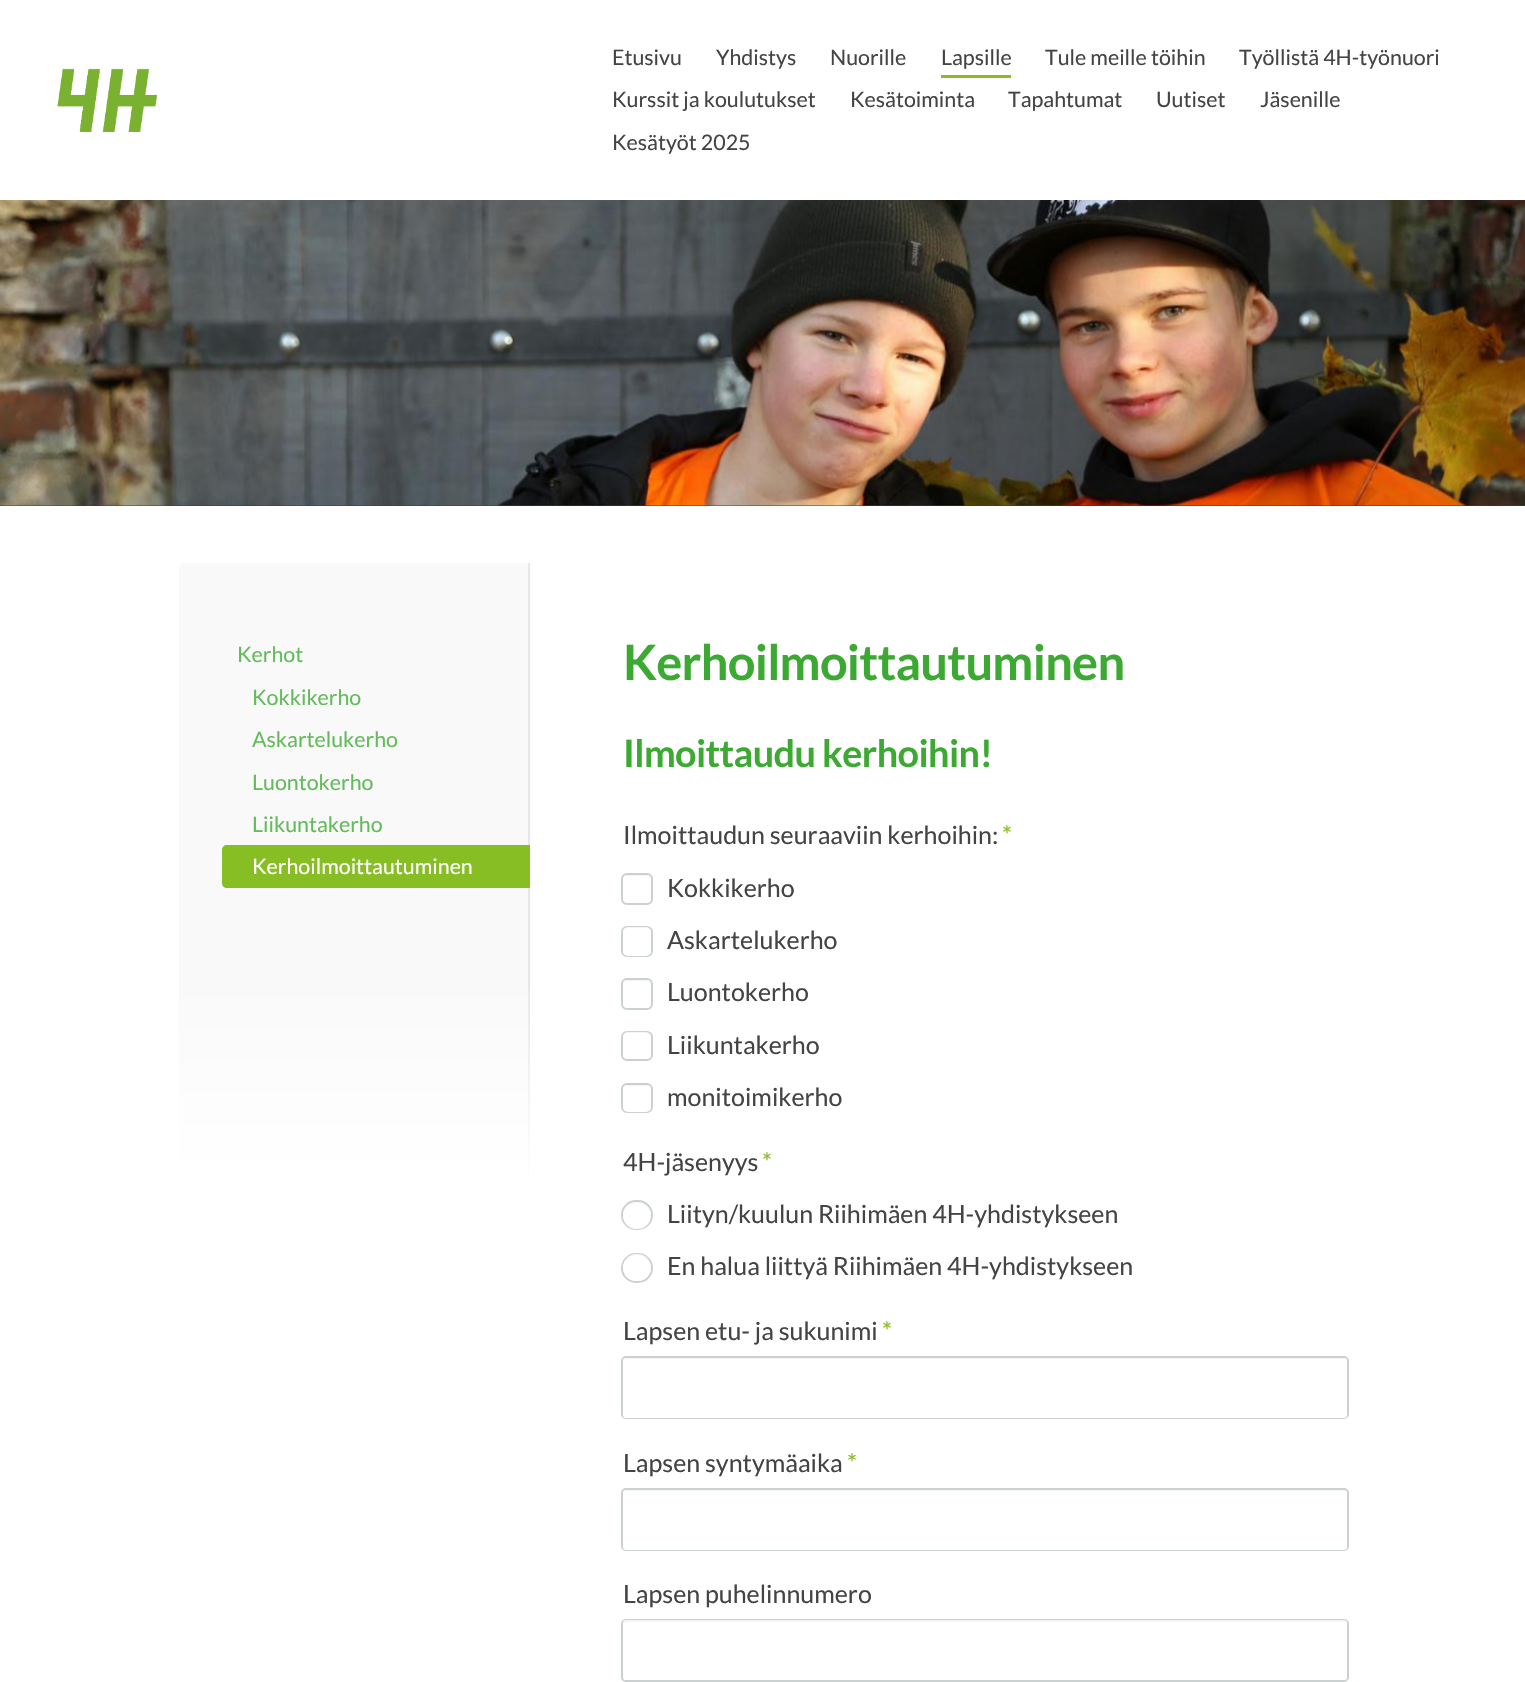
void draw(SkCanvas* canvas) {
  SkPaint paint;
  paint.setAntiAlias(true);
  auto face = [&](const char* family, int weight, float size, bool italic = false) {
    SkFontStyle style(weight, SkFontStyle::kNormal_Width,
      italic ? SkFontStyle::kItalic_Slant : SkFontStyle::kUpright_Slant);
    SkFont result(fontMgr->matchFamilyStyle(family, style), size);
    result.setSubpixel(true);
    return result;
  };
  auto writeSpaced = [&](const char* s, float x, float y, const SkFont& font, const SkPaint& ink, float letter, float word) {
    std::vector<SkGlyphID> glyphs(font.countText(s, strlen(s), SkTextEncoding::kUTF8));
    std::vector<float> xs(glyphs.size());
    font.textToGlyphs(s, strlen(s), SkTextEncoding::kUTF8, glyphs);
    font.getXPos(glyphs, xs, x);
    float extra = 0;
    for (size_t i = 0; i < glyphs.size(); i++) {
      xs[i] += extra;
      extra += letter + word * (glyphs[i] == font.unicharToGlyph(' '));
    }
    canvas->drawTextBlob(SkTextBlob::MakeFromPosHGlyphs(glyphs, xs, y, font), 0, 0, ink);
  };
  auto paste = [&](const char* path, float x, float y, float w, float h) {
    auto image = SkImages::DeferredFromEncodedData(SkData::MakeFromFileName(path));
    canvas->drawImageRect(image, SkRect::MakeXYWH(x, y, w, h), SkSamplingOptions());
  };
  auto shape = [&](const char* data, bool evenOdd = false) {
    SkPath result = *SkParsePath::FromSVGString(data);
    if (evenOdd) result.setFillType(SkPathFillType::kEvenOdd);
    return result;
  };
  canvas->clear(0xffffffff);
  paint.setColor(0xff73196e);
  canvas->drawRect(SkRect::MakeXYWH(0, 505, 1525, 1), paint);
  paste("img/1.png", 0, 200, 1525, 306);
  paste("img/2.png", 57, 68, 101, 64);
  paint.setColor(0xff87be23);
  canvas->drawRect(SkRect::MakeXYWH(941, 75, 70, 3), paint);
  paint.setColor(0xfff9f9f9);
  canvas->drawPath(shape("M184 563H530V1191H179V568C179 565 181 563 184 563Z"), paint);
  paint.setColor(0xffe6e6e6);
  canvas->drawRect(SkRect::MakeXYWH(528, 563, 2, 628), paint);
  paint.setColor(0xff87be23);
  canvas->drawPath(shape("M227 845H530V888H227C224 888 222 886 222 883V850C222 847 224 845 227 845Z"), paint);
  {
    const SkColor colors[] = {0x00ffffff, 0xffffffff};
    const float stops[] = {0, 1};
    const SkPoint ends[] = {{354, 966}, {354, 1191}};
    paint.setShader(SkGradientShader::MakeLinear(ends, colors, stops, 2, SkTileMode::kClamp));
    paint.setAlpha(255);
  }
  canvas->drawRect(SkRect::MakeXYWH(179, 989, 351, 202), paint);
  paint.setStroke(true);
  paint.setStrokeWidth(2);
  paint.setShader(nullptr);
  paint.setColor(0xffcbd0d0);
  canvas->drawRoundRect(SkRect::MakeXYWH(622, 874, 30, 30), 5, 5, paint);
  paint.setStroke(false);
  paint.setColor(0xffffffff);
  canvas->drawRoundRect(SkRect::MakeXYWH(623, 875, 28, 28), 5, 5, paint);
  paint.setColor(0xfff5f5f6);
  canvas->drawPath(shape("M627 876H643C648 876 650 877 651 879C650.5 876.5 648.5 875 646 875H628C626.5 875 625 875.5 624 877C625 876.5 626 876 627 876Z"), paint);
  paint.setStroke(true);
  paint.setColor(0xffcbd0d0);
  canvas->drawRoundRect(SkRect::MakeXYWH(622, 927, 30, 29), 5, 5, paint);
  paint.setStroke(false);
  paint.setColor(0xffffffff);
  canvas->drawRoundRect(SkRect::MakeXYWH(623, 927, 28, 29), 5, 5, paint);
  paint.setColor(0x0d3f3f44);
  canvas->drawPath(shape("M627 928H643C648 928 650 929 651 931C650.5 928.5 648.5 927 646 927H628C626.5 927 625 927.5 624 929C625 928.5 626 928 627 928ZM651 952L650.5 952.5Z", true), paint);
  paint.setStroke(true);
  paint.setColor(0xffcbd0d0);
  canvas->drawRoundRect(SkRect::MakeXYWH(622, 979, 30, 30), 5, 5, paint);
  paint.setStroke(false);
  paint.setColor(0xffffffff);
  canvas->drawRoundRect(SkRect::MakeXYWH(623, 980, 28, 28), 5, 5, paint);
  paint.setColor(0xfff5f5f6);
  canvas->drawPath(shape("M627 981H643C648 981 650 982 651 984C650.5 981.5 648.5 980 646 980H628C626.5 980 625 980.5 624 982C625 981.5 626 981 627 981Z"), paint);
  paint.setStroke(true);
  paint.setColor(0xffcbd0d0);
  canvas->drawRoundRect(SkRect::MakeXYWH(622, 1032, 30, 28), 5, 5, paint);
  paint.setStroke(false);
  paint.setColor(0xffffffff);
  canvas->drawRoundRect(SkRect::MakeXYWH(623, 1032, 28, 27), 5, 5, paint);
  paint.setColor(0x0d3f3f44);
  canvas->drawPath(shape("M627 1033H643C648.5 1033 650.5 1034.5 651 1037.5V1037C651 1034 649 1032 646 1032H628C626 1032 624 1033.5 623.5 1035C624 1034 625.5 1033 627 1033Z"), paint);
  paint.setStroke(true);
  paint.setColor(0xffcbd0d0);
  canvas->drawRoundRect(SkRect::MakeXYWH(622, 1084, 30, 28), 5, 5, paint);
  paint.setStroke(false);
  paint.setColor(0xffffffff);
  canvas->drawRoundRect(SkRect::MakeXYWH(623, 1085, 28, 27), 5, 5, paint);
  paint.setColor(0xfff5f5f6);
  canvas->drawPath(shape("M627 1086H643C648.5 1086 650.5 1087.5 651 1090C651 1087 649 1085 646 1085H628C626 1085 624.5 1086 623.5 1087.5C624.5 1086.5 625.5 1086 627 1086Z"), paint);
  paint.setStroke(true);
  paint.setColor(0xffcbd0d0);
  canvas->drawRoundRect(SkRect::MakeXYWH(622, 1201, 30, 28), 14, 14, paint);
  paint.setStroke(false);
  paint.setColor(0xffffffff);
  canvas->drawRoundRect(SkRect::MakeXYWH(623, 1202, 28, 27), 13.5f, 13.5f, paint);
  paint.setColor(0x0d3f3f44);
  canvas->drawPath(shape("M637 1203C648 1203 652.5 1213.5 650 1221C651 1218.5 651.5 1215.5 650.5 1213C648 1198.5 627 1198.5 623.5 1212.5C625 1207 629.5 1203 637 1203Z"), paint);
  paint.setStroke(true);
  paint.setColor(0xffcbd0d0);
  canvas->drawRoundRect(SkRect::MakeXYWH(622, 1254, 30, 28), 14, 14, paint);
  paint.setStroke(false);
  paint.setColor(0xffffffff);
  canvas->drawRoundRect(SkRect::MakeXYWH(623, 1254, 28, 27), 13.5f, 13.5f, paint);
  paint.setColor(0x0d3f3f44);
  canvas->drawPath(shape("M637 1255C648 1255 652.5 1265.5 650 1273C651 1270.5 651.5 1267.5 650.5 1265C648 1250.5 627 1250.5 623.5 1264.5C625 1259 629.5 1255 637 1255Z"), paint);
  paint.setStroke(true);
  paint.setColor(0xffcbd0d0);
  canvas->drawRoundRect(SkRect::MakeXYWH(622, 1357, 726, 61), 4, 4, paint);
  paint.setStroke(false);
  paint.setColor(0xffffffff);
  canvas->drawRoundRect(SkRect::MakeXYWH(623, 1358, 724, 60), 3, 3, paint);
  paint.setColor(0x0d3f3f44);
  canvas->drawPath(shape("M626 1359H1344C1346 1359 1347 1360 1347 1362V1361C1347 1359 1346 1358 1344 1358H626C625 1358 624 1359 623 1360Z"), paint);
  paint.setStroke(true);
  paint.setColor(0xffcbd0d0);
  canvas->drawRoundRect(SkRect::MakeXYWH(622, 1489, 726, 61), 4, 4, paint);
  paint.setStroke(false);
  paint.setColor(0xffffffff);
  canvas->drawRoundRect(SkRect::MakeXYWH(623, 1490, 724, 60), 3, 3, paint);
  paint.setColor(0x0d3f3f44);
  canvas->drawPath(shape("M626 1491H1344C1346 1491 1347 1492 1347 1494V1493C1347 1491 1346 1490 1344 1490H626C625 1490 624 1491 623 1492Z"), paint);
  paint.setStroke(true);
  paint.setColor(0xffcbd0d0);
  canvas->drawRoundRect(SkRect::MakeXYWH(622, 1620, 726, 61), 4, 4, paint);
  paint.setStroke(false);
  paint.setColor(0xffffffff);
  canvas->drawRoundRect(SkRect::MakeXYWH(623, 1620, 724, 60), 3, 3, paint);
  paint.setColor(0x0d3f3f44);
  canvas->drawPath(shape("M626 1622H1344C1346 1622 1347 1623 1347 1624V1623C1347 1621 1346 1620 1344 1620H626C624 1620 623 1621 623 1623Z"), paint);
  auto f0 = face("Lato", 400, 21.4f);
  paint.setColor(0xff444444);
  {
    const struct { const char* s; float x, y; } items[] = {
      {"Etusivu", 612, 65},
      {"Yhdistys", 716, 65},
      {"Nuorille", 830, 65},
      {"Lapsille", 941, 65},
      {"Tule meille töihin", 1045, 65},
      {"Työllistä 4H-työnuori", 1239, 65},
      {"Kurssit ja koulutukset", 612, 107},
      {"Kesätoiminta", 850, 107},
      {"Tapahtumat", 1008, 107},
      {"Uutiset", 1156, 107},
      {"Jäsenille", 1260, 107},
      {"Kesätyöt 2025", 612, 150},
    };
    for (auto [s, x, y] : items) {
      canvas->drawString(s, x, y, f0, paint);
    }
  }
  paint.setColor(0xff63bb5b);
  {
    const struct { const char* s; float x, y; } items[] = {
      {"Kerhot", 237, 662},
      {"Kokkikerho", 252, 705},
      {"Askartelukerho", 252, 747},
      {"Luontokerho", 252, 790},
      {"Liikuntakerho", 252, 832},
    };
    for (auto [s, x, y] : items) {
      canvas->drawString(s, x, y, f0, paint);
    }
  }
  paint.setColor(0xffffffff);
  canvas->drawString("Kerhoilmoittautuminen", 252, 874, f0, paint);
  auto f1 = face("Lato", 700, 48.75f);
  paint.setColor(0xff3caa32);
  writeSpaced("Kerhoilmoittautuminen", 623, 680, f1, paint, -0.75f, 0);
  auto f2 = face("Lato", 700, 37.75f);
  writeSpaced("Ilmoittaudu kerhoihin!", 623, 767, f2, paint, -0.6f, 0);
  auto f3 = face("Lato", 400, 25);
  paint.setColor(0xff444444);
  canvas->drawString("Ilmoittaudun seuraaviin kerhoihin:", 623, 844, f3, paint);
  paint.setColor(0xff87be23);
  canvas->drawString("*", 1002, 844, f3, paint);
  paint.setColor(0xff444444);
  {
    const struct { const char* s; float x, y; } items[] = {
      {"Kokkikerho", 667, 897},
      {"Askartelukerho", 667, 949},
      {"Luontokerho", 667, 1001},
      {"Liikuntakerho", 667, 1054},
      {"monitoimikerho", 667, 1106},
      {"4H-jäsenyys", 623, 1171},
    };
    for (auto [s, x, y] : items) {
      canvas->drawString(s, x, y, f3, paint);
    }
  }
  paint.setColor(0xff87be23);
  canvas->drawString("*", 762, 1171, f3, paint);
  paint.setColor(0xff444444);
  {
    const struct { const char* s; float x, y; } items[] = {
      {"Liityn/kuulun Riihimäen 4H-yhdistykseen", 667, 1223},
      {"En halua liittyä Riihimäen 4H-yhdistykseen", 667, 1275},
      {"Lapsen etu- ja sukunimi", 623, 1340},
    };
    for (auto [s, x, y] : items) {
      canvas->drawString(s, x, y, f3, paint);
    }
  }
  paint.setColor(0xff87be23);
  canvas->drawString("*", 882, 1340, f3, paint);
  paint.setColor(0xff444444);
  canvas->drawString("Lapsen syntymäaika", 623, 1472, f3, paint);
  paint.setColor(0xff87be23);
  canvas->drawString("*", 847, 1472, f3, paint);
  paint.setColor(0xff444444);
  canvas->drawString("Lapsen puhelinnumero", 623, 1603, f3, paint);
}
